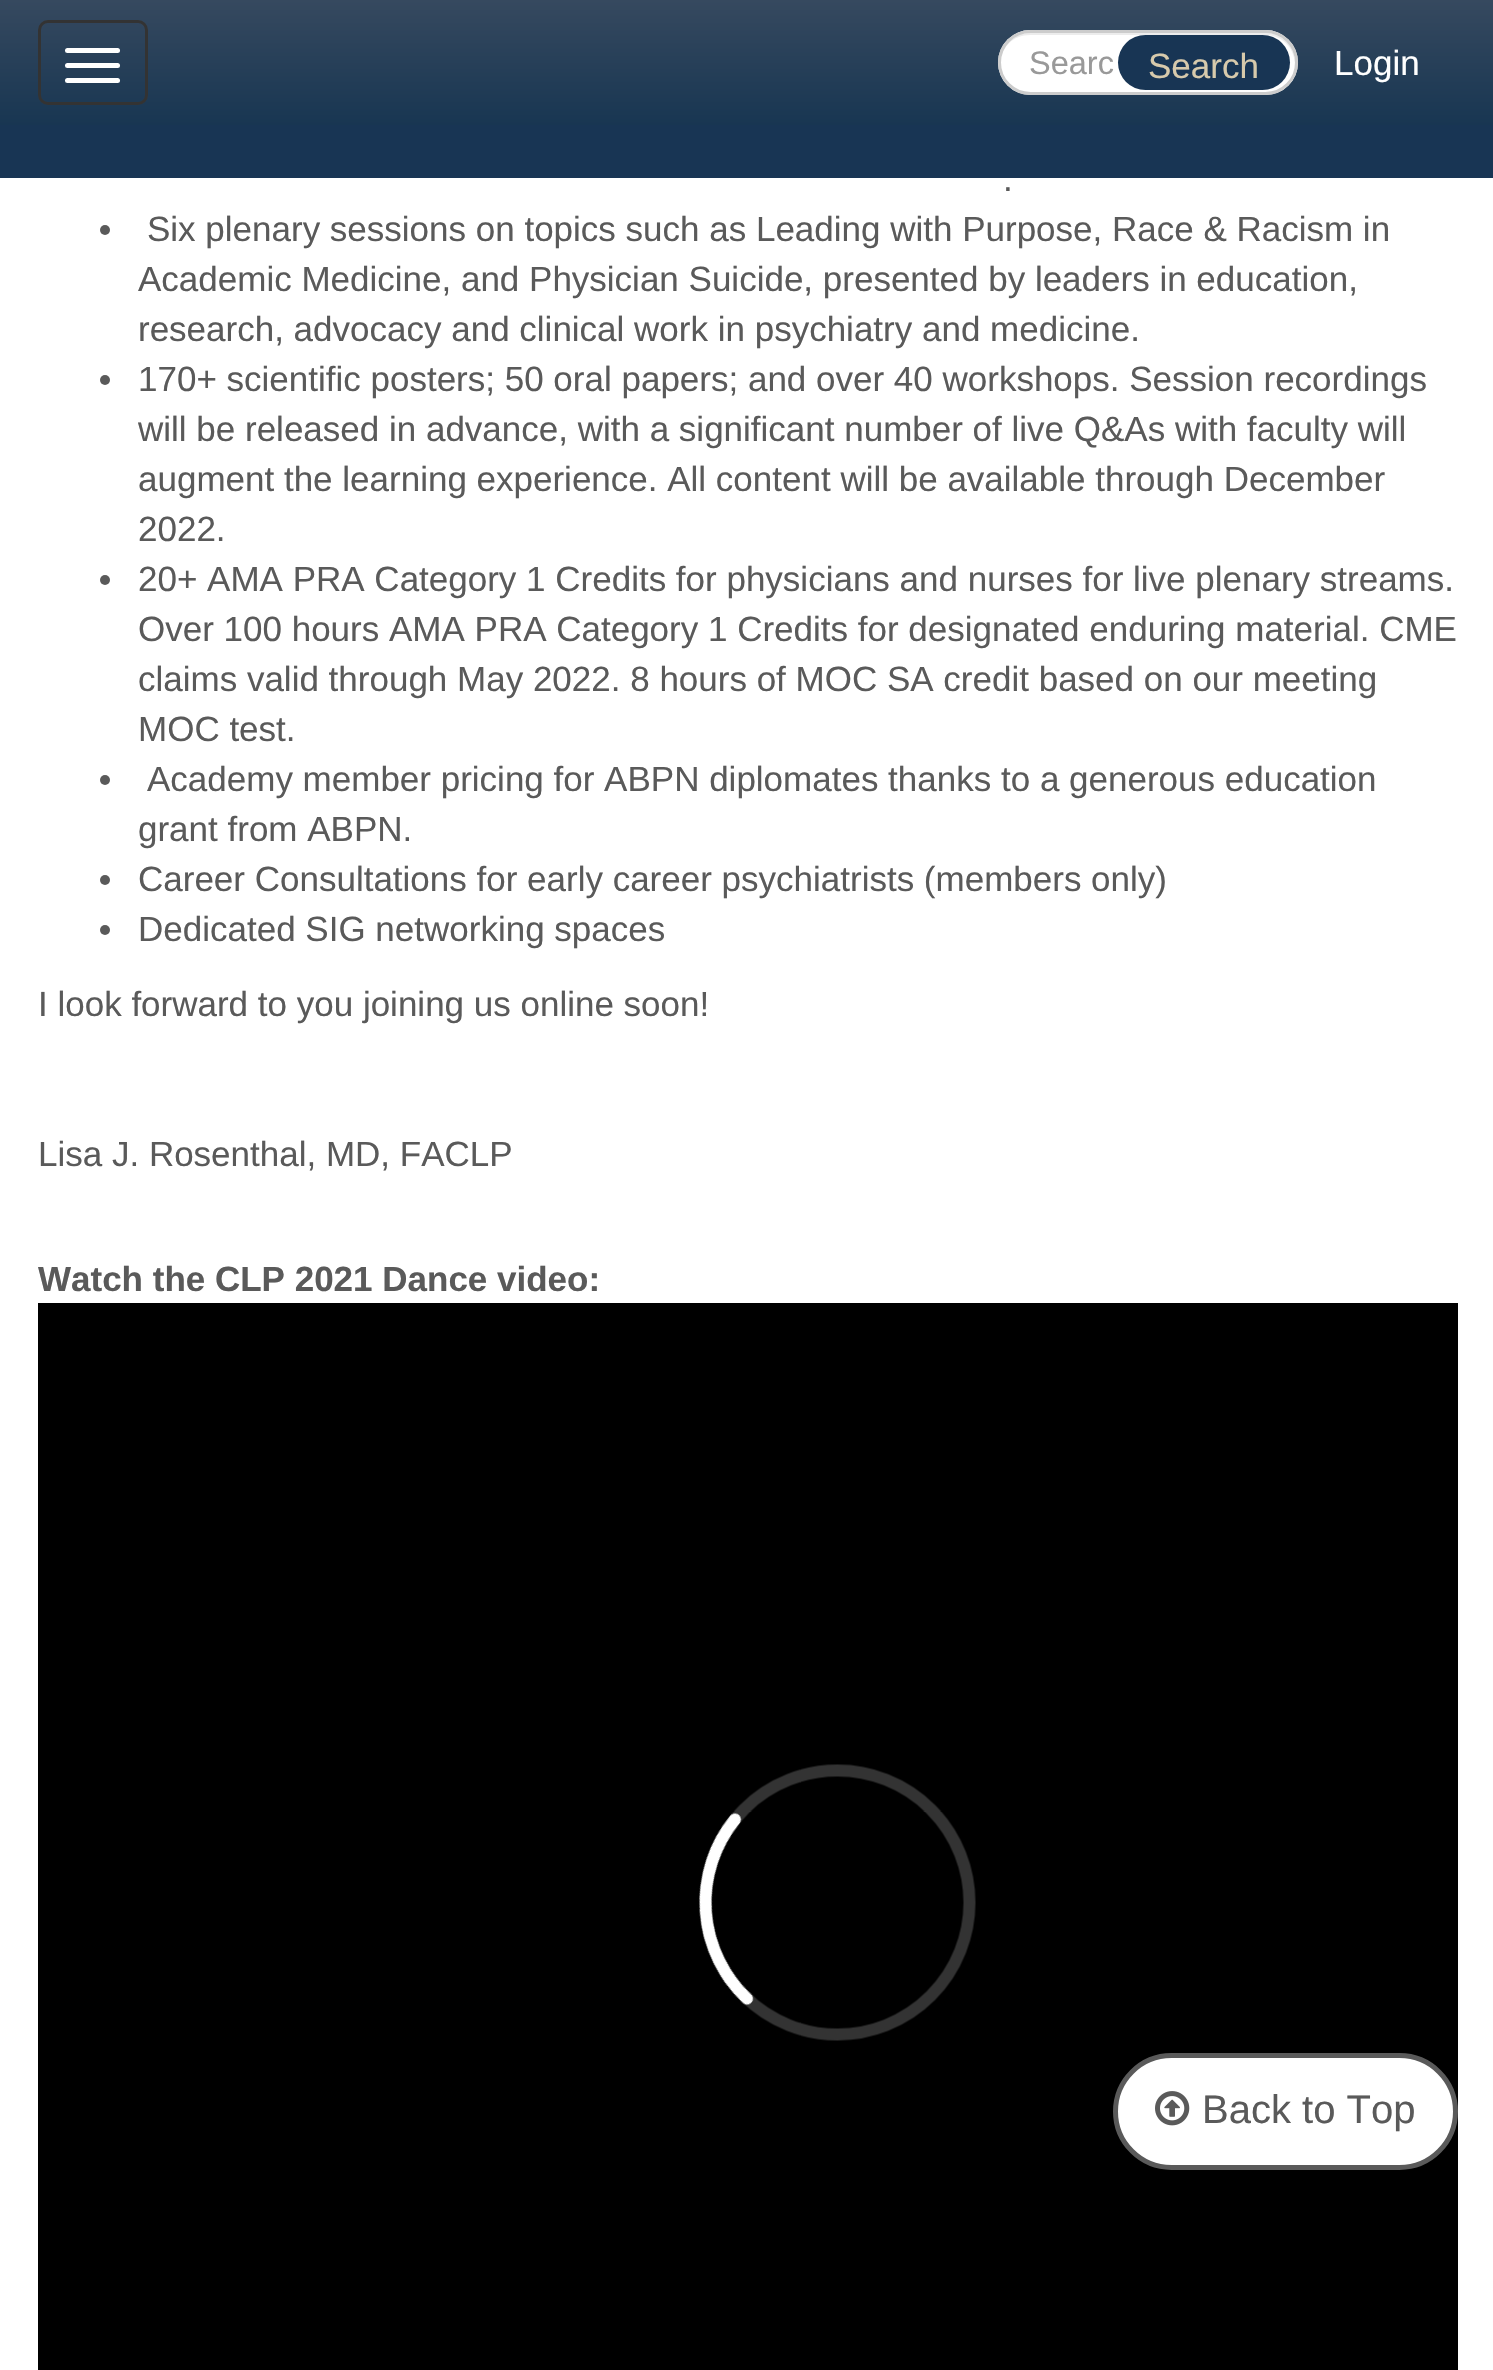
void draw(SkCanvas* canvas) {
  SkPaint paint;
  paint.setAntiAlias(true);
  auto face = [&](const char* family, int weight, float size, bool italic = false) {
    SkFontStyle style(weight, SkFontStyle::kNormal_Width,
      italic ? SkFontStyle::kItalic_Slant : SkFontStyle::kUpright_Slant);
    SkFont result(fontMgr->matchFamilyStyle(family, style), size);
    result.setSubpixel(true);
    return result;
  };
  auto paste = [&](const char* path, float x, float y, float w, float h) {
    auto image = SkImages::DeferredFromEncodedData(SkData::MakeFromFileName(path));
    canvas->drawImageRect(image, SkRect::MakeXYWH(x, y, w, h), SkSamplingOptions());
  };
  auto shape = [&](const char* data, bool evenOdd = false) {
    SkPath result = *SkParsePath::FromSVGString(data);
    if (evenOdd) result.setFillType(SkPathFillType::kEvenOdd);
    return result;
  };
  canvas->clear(0xffffffff);
  {
    const SkColor colors[] = {0xff36495f, 0xff183652};
    const float stops[] = {0, 1};
    const SkPoint ends[] = {{748, 0}, {748, 125}};
    paint.setShader(SkGradientShader::MakeLinear(ends, colors, stops, 2, SkTileMode::kClamp));
    paint.setAlpha(255);
  }
  canvas->drawRect(SkRect::MakeXYWH(0, 0, 1493, 125), paint);
  paint.setStroke(true);
  paint.setStrokeWidth(3);
  paint.setShader(nullptr);
  paint.setColor(0xff333333);
  canvas->drawRoundRect(SkRect::MakeXYWH(39.5f, 21.5f, 107, 82), 8.5f, 8.5f, paint);
  paint.setStroke(false);
  paint.setColor(0xffffffff);
  canvas->drawRoundRect(SkRect::MakeXYWH(65, 48, 55, 5), 2.5f, 2.5f, paint);
  canvas->drawRoundRect(SkRect::MakeXYWH(65, 63, 55, 5), 2.5f, 2.5f, paint);
  canvas->drawRoundRect(SkRect::MakeXYWH(65, 78, 55, 5), 2.5f, 2.5f, paint);
  canvas->drawRoundRect(SkRect::MakeXYWH(998, 30, 300, 65), 32.5f, 32.5f, paint);
  paint.setColor(0xffececec);
  canvas->drawPath(shape("M1030 35H1265C1282 35 1294 47 1295 64V63C1295 46 1282 33 1265 33H1030C1013 33 1000 46 1000 63V64C1001 47 1013 35 1030 35Z"), paint);
  paint.setStroke(true);
  paint.setColor(0xffcccccc);
  canvas->drawRoundRect(SkRect::MakeXYWH(999.5f, 31.5f, 297, 62), 31, 31, paint);
  paint.setStroke(false);
  paint.setColor(0xff183554);
  canvas->drawRoundRect(SkRect::MakeXYWH(1118, 35, 172, 55), 27.5f, 27.5f, paint);
  canvas->drawRect(SkRect::MakeXYWH(0, 125, 1493, 53), paint);
  paint.setColor(0xff5a5a5a);
  canvas->drawCircle(105, 230, 5, paint);
  canvas->drawCircle(105, 380, 5, paint);
  canvas->drawCircle(105, 580, 5, paint);
  canvas->drawCircle(105, 780, 5, paint);
  canvas->drawCircle(105, 880, 5, paint);
  canvas->drawCircle(105, 930, 5, paint);
  paste("img/1.png", 38, 1303, 1420, 1067);
  paint.setColor(0xffffffff);
  canvas->drawRoundRect(SkRect::MakeXYWH(1115.5f, 2055.5f, 340, 112), 56, 56, paint);
  paint.setStroke(true);
  paint.setStrokeWidth(5);
  paint.setColor(0xff5a5a5a);
  canvas->drawRoundRect(SkRect::MakeXYWH(1115.5f, 2055.5f, 340, 112), 56, 56, paint);
  paste("img/2.png", 1155, 2091, 35, 35);
  auto f0 = face("Liberation Sans", 400, 32.5f);
  paint.setStroke(false);
  paint.setColor(0xff999999);
  canvas->drawString("Searc", 1029, 74, f0, paint);
  auto f1 = face("Liberation Sans", 400, 35);
  paint.setColor(0xffd7caac);
  canvas->drawString("Search", 1148, 78, f1, paint);
  paint.setColor(0xffffffff);
  canvas->drawString("Login", 1334, 75, f1, paint);
  paint.setColor(0xff5a5a5a);
  {
    const struct { const char* s; float x, y; } items[] = {
      {".", 1003, 191},
      {"Six plenary sessions on topics such as Leading with Purpose, Race & Racism in", 147, 241},
      {"Academic Medicine, and Physician Suicide, presented by leaders in education,", 138, 291},
      {"research, advocacy and clinical work in psychiatry and medicine.", 138, 341},
      {"170+ scientific posters; 50 oral papers; and over 40 workshops. Session recordings", 138, 391},
      {"will be released in advance, with a significant number of live Q&As with faculty will", 138, 441},
      {"augment the learning experience. All content will be available through December", 138, 491},
      {"2022.", 138, 541},
      {"20+ AMA PRA Category 1 Credits for physicians and nurses for live plenary streams.", 138, 591},
      {"Over 100 hours AMA PRA Category 1 Credits for designated enduring material. CME", 138, 641},
      {"claims valid through May 2022. 8 hours of MOC SA credit based on our meeting", 138, 691},
      {"MOC test.", 138, 741},
      {"Academy member pricing for ABPN diplomates thanks to a generous education", 147, 791},
      {"grant from ABPN.", 138, 841},
      {"Career Consultations for early career psychiatrists (members only)", 138, 891},
      {"Dedicated SIG networking spaces", 138, 941},
      {"I look forward to you joining us online soon!", 38, 1016},
      {"Lisa J. Rosenthal, MD, FACLP", 38, 1166},
    };
    for (auto [s, x, y] : items) {
      canvas->drawString(s, x, y, f1, paint);
    }
  }
  auto f2 = face("Liberation Sans", 700, 35);
  canvas->drawString("Watch the CLP 2021 Dance video:", 38, 1291, f2, paint);
  auto f3 = face("Liberation Sans", 400, 40);
  canvas->drawString("Back to Top", 1202, 2123, f3, paint);
}
